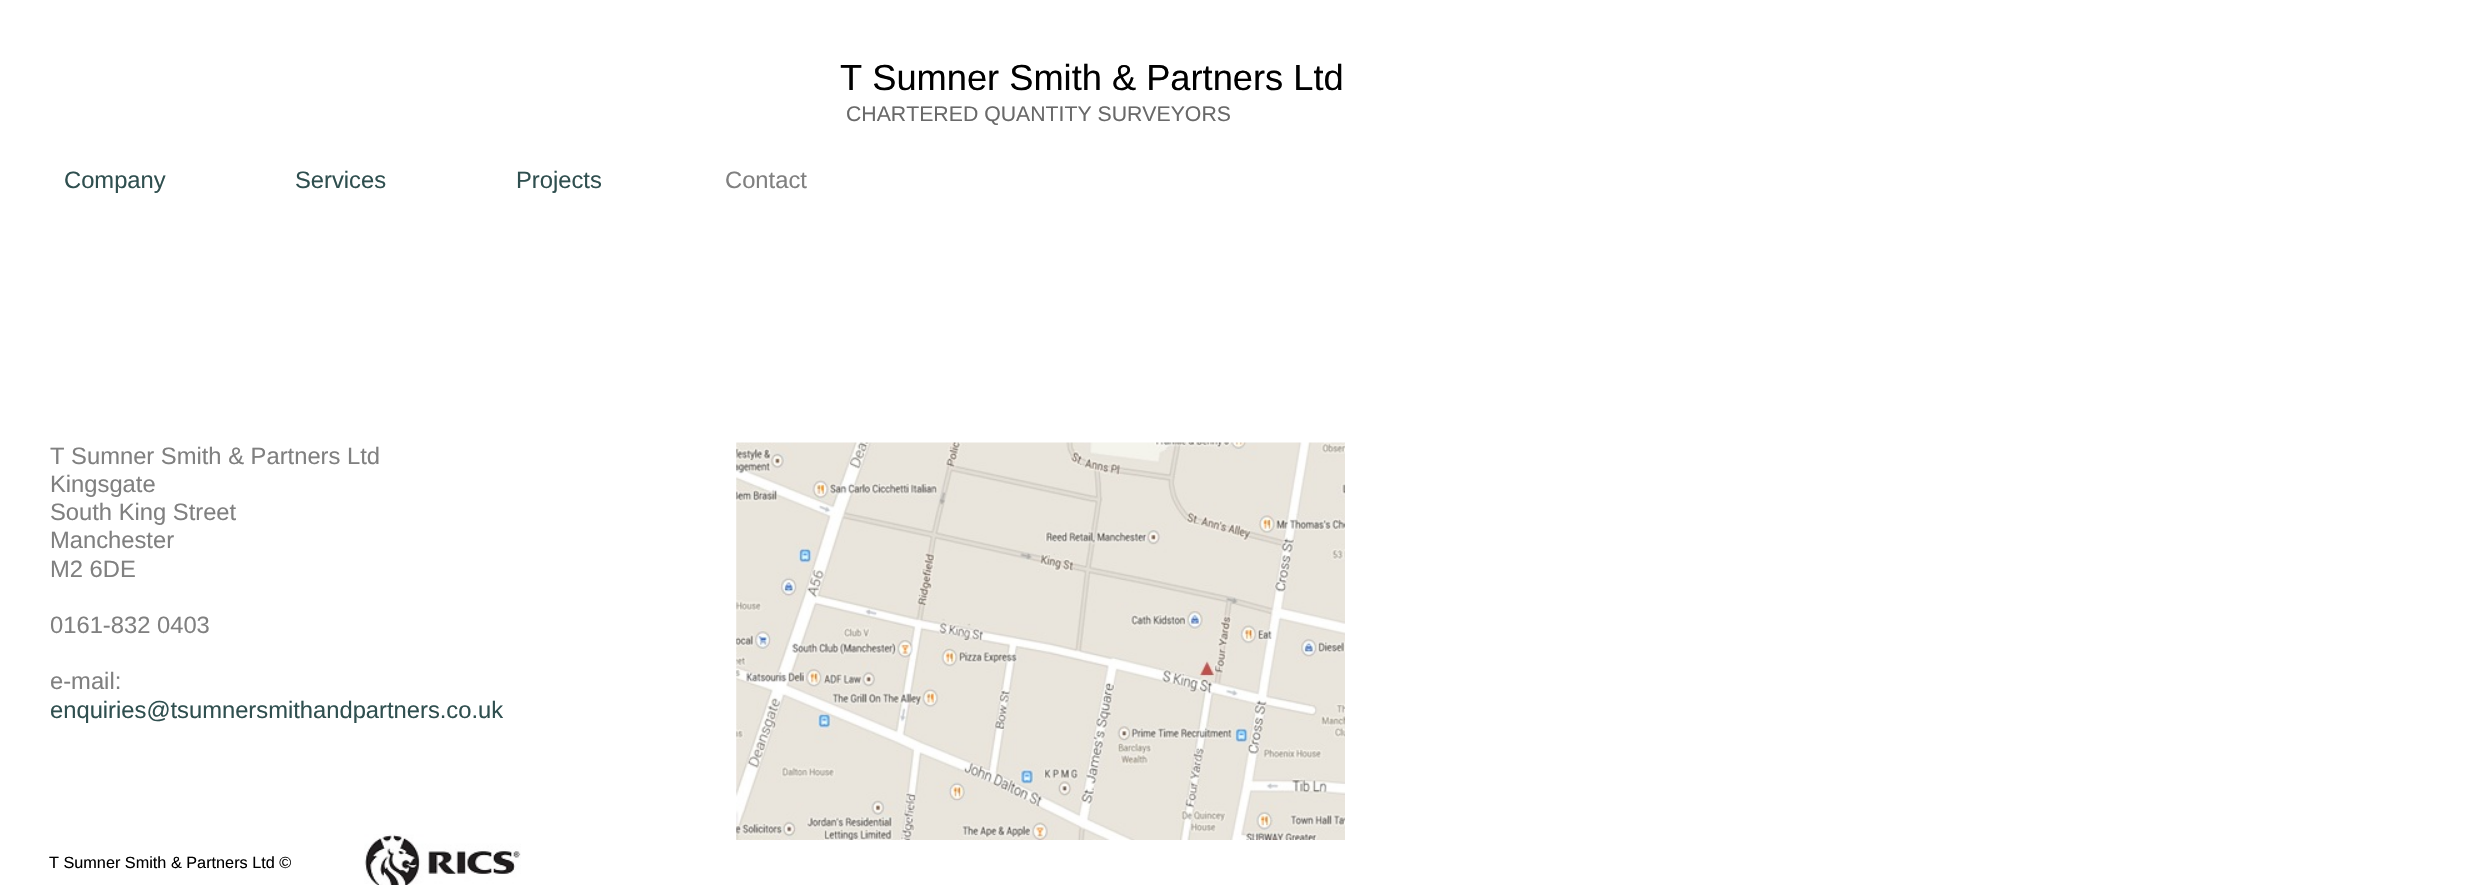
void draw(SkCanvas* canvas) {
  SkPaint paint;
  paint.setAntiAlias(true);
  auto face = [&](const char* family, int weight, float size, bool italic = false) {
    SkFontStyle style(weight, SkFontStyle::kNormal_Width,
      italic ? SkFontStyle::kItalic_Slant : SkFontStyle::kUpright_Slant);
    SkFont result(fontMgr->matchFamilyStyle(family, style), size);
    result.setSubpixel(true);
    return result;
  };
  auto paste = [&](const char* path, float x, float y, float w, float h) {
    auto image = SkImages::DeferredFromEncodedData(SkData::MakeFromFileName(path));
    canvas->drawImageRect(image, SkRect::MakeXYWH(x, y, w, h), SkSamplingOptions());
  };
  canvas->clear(0xffffffff);
  paste("img/1.png", 736, 442, 609, 398);
  paste("img/2.png", 364, 834, 157, 51);
  auto f0 = face("Liberation Sans", 400, 36.25f);
  paint.setColor(0xff000000);
  canvas->drawString("T Sumner Smith & Partners Ltd", 840, 90, f0, paint);
  auto f1 = face("Liberation Sans", 400, 21.25f);
  paint.setColor(0xff696969);
  canvas->drawString("CHARTERED QUANTITY SURVEYORS", 846, 121, f1, paint);
  auto f2 = face("Liberation Sans", 400, 23.75f);
  paint.setColor(0xff2f4f4f);
  {
    const struct { const char* s; float x, y; } items[] = {
      {"Company", 64, 188},
      {"Services", 295, 188},
      {"Projects", 516, 188},
    };
    for (auto [s, x, y] : items) {
      canvas->drawString(s, x, y, f2, paint);
    }
  }
  paint.setColor(0xff808080);
  {
    const struct { const char* s; float x, y; } items[] = {
      {"Contact", 725, 188},
      {"T Sumner Smith & Partners Ltd", 50, 464},
      {"Kingsgate", 50, 492},
      {"South King Street", 50, 520},
      {"Manchester", 50, 548},
      {"M2 6DE", 50, 577},
      {"0161-832 0403", 50, 633},
      {"e-mail:", 50, 689},
    };
    for (auto [s, x, y] : items) {
      canvas->drawString(s, x, y, f2, paint);
    }
  }
  paint.setColor(0xff2f4f4f);
  canvas->drawString("enquiries@tsumnersmithandpartners.co.uk", 50, 718, f2, paint);
  auto f3 = face("Liberation Sans", 400, 16.25f);
  paint.setColor(0xff000000);
  canvas->drawString("T Sumner Smith & Partners Ltd ©", 49, 868, f3, paint);
}
